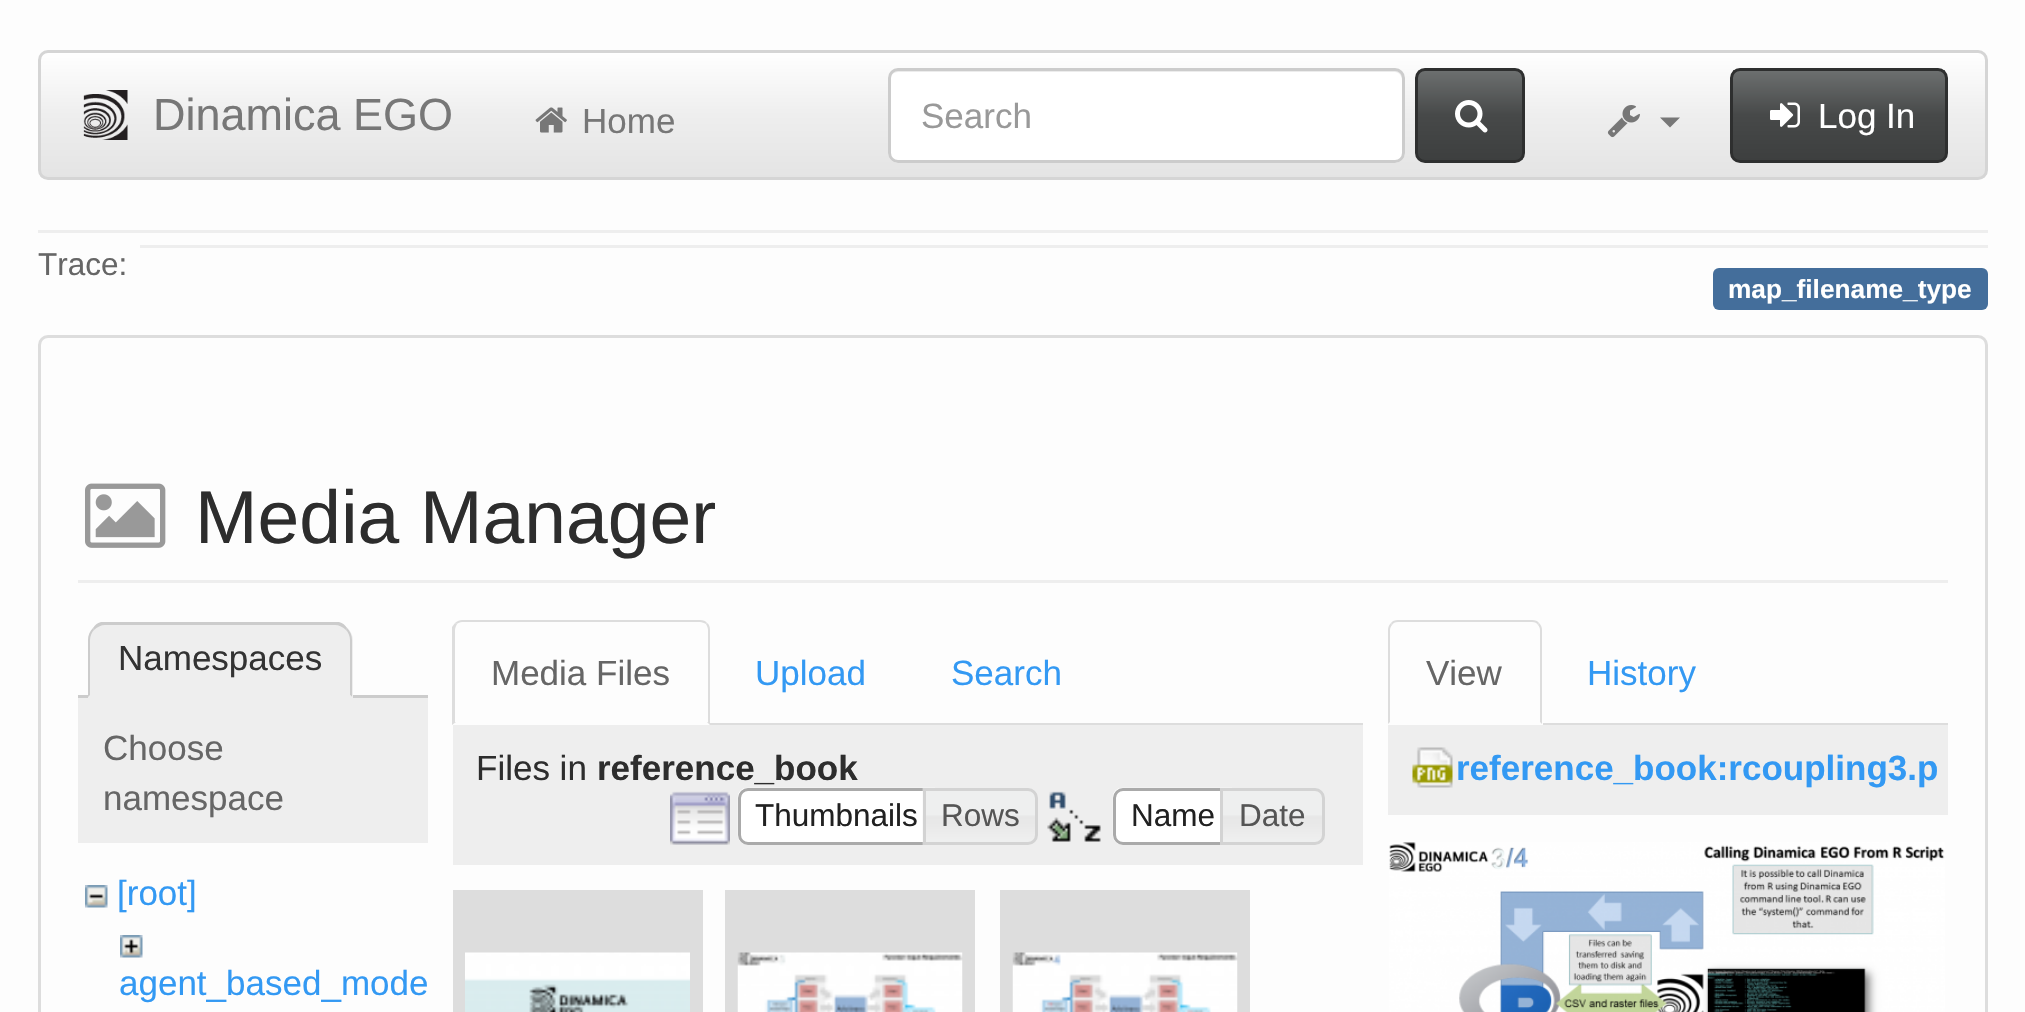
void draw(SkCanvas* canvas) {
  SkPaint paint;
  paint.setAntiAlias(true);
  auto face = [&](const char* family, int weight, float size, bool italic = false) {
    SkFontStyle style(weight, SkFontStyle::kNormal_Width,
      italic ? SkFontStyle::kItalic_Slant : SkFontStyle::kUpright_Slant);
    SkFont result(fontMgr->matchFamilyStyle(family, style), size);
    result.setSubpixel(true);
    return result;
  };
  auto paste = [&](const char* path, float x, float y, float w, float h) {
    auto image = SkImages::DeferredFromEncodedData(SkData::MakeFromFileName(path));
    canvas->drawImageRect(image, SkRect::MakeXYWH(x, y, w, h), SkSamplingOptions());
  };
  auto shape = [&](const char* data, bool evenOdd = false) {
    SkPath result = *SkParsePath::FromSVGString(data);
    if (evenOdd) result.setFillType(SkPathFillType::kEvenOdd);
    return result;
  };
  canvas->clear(0xfffdfdfd);
  canvas->save();
  canvas->clipPath(shape("M48 50H1978C1983.5 50 1988 54.5 1988 60V170C1988 175.5 1983.5 180 1978 180H48C42.5 180 38 175.5 38 170V60C38 54.5 42.5 50 48 50Z"), true);
  {
    const SkColor colors[] = {0xffffffff, 0xffeeeeee, 0xffe4e4e4};
    const float stops[] = {0, 0.5f, 1};
    const SkPoint ends[] = {{1013, 52}, {1013, 178}};
    paint.setShader(SkGradientShader::MakeLinear(ends, colors, stops, 3, SkTileMode::kClamp));
    paint.setAlpha(255);
  }
  canvas->drawRect(SkRect::MakeXYWH(40, 53, 1945, 125), paint);
  canvas->restore();
  paint.setStroke(true);
  paint.setStrokeWidth(3);
  paint.setShader(nullptr);
  paint.setColor(0xffd5d5d5);
  canvas->drawRoundRect(SkRect::MakeXYWH(39.5f, 51.5f, 1947, 127), 8.5f, 8.5f, paint);
  paste("img/1.png", 83, 90, 45, 50);
  paste("img/2.png", 535, 107, 32, 26);
  paint.setStroke(false);
  paint.setColor(0xffffffff);
  canvas->drawRoundRect(SkRect::MakeXYWH(888, 68, 517, 95), 10, 10, paint);
  paint.setColor(0xffececec);
  canvas->drawPath(shape("M898 72H1395C1399 72 1402 76 1402 80V156C1403 155 1403 153 1403 152V78C1403 74 1399 70 1395 70H898C894 70 890 74 890 78V80C890 76 893 72 898 72Z"), paint);
  paint.setStroke(true);
  paint.setColor(0xffcccccc);
  canvas->drawRoundRect(SkRect::MakeXYWH(889.5f, 69.5f, 514, 92), 8.5f, 8.5f, paint);
  canvas->save();
  canvas->clipPath(shape("M1425 68H1515C1520.5 68 1525 72.5 1525 78V153C1525 158.5 1520.5 163 1515 163H1425C1419.5 163 1415 158.5 1415 153V78C1415 72.5 1419.5 68 1425 68Z"), true);
  paint.setStroke(false);
  {
    const SkColor colors[] = {0xff6d7070, 0xff474949, 0xff3d3f3f};
    const float stops[] = {0, 0.5f, 1};
    const SkPoint ends[] = {{1470, 70}, {1470, 160}};
    paint.setShader(SkGradientShader::MakeLinear(ends, colors, stops, 3, SkTileMode::kClamp));
    paint.setAlpha(255);
  }
  canvas->drawRect(SkRect::MakeXYWH(1418, 70, 105, 90), paint);
  canvas->restore();
  paint.setStroke(true);
  paint.setShader(nullptr);
  paint.setColor(0xff2e2f2f);
  canvas->drawRoundRect(SkRect::MakeXYWH(1416.5f, 69.5f, 107, 92), 8.5f, 8.5f, paint);
  paste("img/3.png", 1455, 100, 33, 33);
  paste("img/4.png", 1607, 105, 33, 33);
  paint.setStroke(false);
  paint.setColor(0xff777777);
  canvas->drawPath(shape("M1660 117.5H1680L1670 127.5Z"), paint);
  {
    const SkColor colors[] = {0xff6d7070, 0xff474949, 0xff3d3f3f};
    const float stops[] = {0, 0.5f, 1};
    const SkPoint ends[] = {{1839, 70}, {1839, 160}};
    paint.setShader(SkGradientShader::MakeLinear(ends, colors, stops, 3, SkTileMode::kClamp));
    paint.setAlpha(255);
  }
  canvas->drawRect(SkRect::MakeXYWH(1733, 70, 212, 90), paint);
  paint.setStroke(true);
  paint.setShader(nullptr);
  paint.setColor(0xff2e2f2f);
  canvas->drawRoundRect(SkRect::MakeXYWH(1731.5f, 69.5f, 215, 92), 8.5f, 8.5f, paint);
  paste("img/5.png", 1770, 102, 30, 26);
  paint.setStroke(false);
  paint.setColor(0xffeeeeee);
  canvas->drawRect(SkRect::MakeXYWH(38, 230, 1950, 3), paint);
  canvas->drawRect(SkRect::MakeXYWH(140, 245, 1848, 3), paint);
  paint.setColor(0xff446e9b);
  canvas->drawRoundRect(SkRect::MakeXYWH(1713, 268, 275, 42), 6, 6, paint);
  paint.setStroke(true);
  paint.setColor(0xffdddddd);
  canvas->drawRoundRect(SkRect::MakeXYWH(39.5f, 336.5f, 1947, 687), 8.5f, 8.5f, paint);
  paint.setStroke(false);
  paint.setColor(0xffeeeeee);
  canvas->drawRect(SkRect::MakeXYWH(78, 580, 1870, 3), paint);
  paste("img/6.png", 85, 483, 81, 65);
  paint.setColor(0xffcccccc);
  canvas->drawRect(SkRect::MakeXYWH(78, 695, 350, 3), paint);
  paint.setColor(0xffeeeeee);
  canvas->drawPath(shape("M106 623H335C345 623 353 631 353 641V698H88V641C88 631 96 623 106 623Z"), paint);
  paint.setColor(0xffcccccc);
  canvas->drawPath(shape("M105 625C101 625 97 627 94 630L93 628C95 625 97 623 101 622H339C343 623 345 625 347 628L346 630C343 627 339 625 335 625Z"), paint);
  canvas->drawPath(shape("M347 628C350 631 352 635 352 640V697L350 695V640C350 636 348 632 346 630Z"), paint);
  paint.setColor(0xffeeeeee);
  canvas->drawPath(shape("M88 698L90 695H350L352 697V698Z"), paint);
  paint.setColor(0xffcccccc);
  canvas->drawPath(shape("M88 697V640C88 635 90 631 93 628L94 630C92 632 90 636 90 640V695Z"), paint);
  paint.setColor(0xffeeeeee);
  canvas->drawRect(SkRect::MakeXYWH(78, 698, 350, 145), paint);
  paste("img/7.png", 85, 885, 23, 23);
  paste("img/8.png", 120, 935, 23, 23);
  paint.setColor(0xffdddddd);
  canvas->drawRect(SkRect::MakeXYWH(710, 723, 653, 2), paint);
  canvas->drawPath(shape("M462 620C460 620 457 621 455 623L457 624C458 623 460 622 462 622H700C702 622 704 623 706 624L707 623C706 621 703 620 700 620Z"), paint);
  canvas->drawPath(shape("M710 725V630C710 627 709 624 707 623L706 624C707 626 708 628 708 630V722H707Z"), paint);
  canvas->drawPath(shape("M452 725V627L455 623L457 624C456 626 455 628 455 630V722H456Z"), paint);
  paint.setColor(0xffeeeeee);
  canvas->drawRect(SkRect::MakeXYWH(453, 725, 910, 140), paint);
  paste("img/9.png", 670, 791, 60, 54);
  paste("img/10.png", 737, 787, 198, 57);
  paint.setStroke(true);
  paint.setColor(0xffaaaaaa);
  canvas->drawPath(shape("M748 789.5H933.5V843.5H748C743.5 843.5 739.5 839.5 739.5 835V798C739.5 793.5 743.5 789.5 748 789.5Z"), paint);
  paste("img/11.png", 922, 788, 115, 57);
  paint.setColor(0xffd3d3d3);
  canvas->drawPath(shape("M924.5 789.5H1028C1032.5 789.5 1036.5 793.5 1036.5 798V835C1036.5 839.5 1032.5 843.5 1028 843.5H924.5Z"), paint);
  paste("img/12.png", 1047, 791, 54, 51);
  paste("img/13.png", 1112, 787, 120, 57);
  paint.setColor(0xffaaaaaa);
  canvas->drawPath(shape("M1123 789.5H1231.5V843.5H1123C1118.5 843.5 1114.5 839.5 1114.5 835V798C1114.5 793.5 1118.5 789.5 1123 789.5Z"), paint);
  paste("img/14.png", 1223, 788, 102, 57);
  paint.setColor(0xffd3d3d3);
  canvas->drawPath(shape("M1221.5 789.5H1315C1319.5 789.5 1323.5 793.5 1323.5 798V835C1323.5 839.5 1319.5 843.5 1315 843.5H1221.5Z"), paint);
  paint.setStroke(false);
  paint.setColor(0xffdddddd);
  canvas->drawRect(SkRect::MakeXYWH(453, 890, 250, 122), paint);
  paste("img/15.png", 465, 952, 225, 60);
  canvas->drawRect(SkRect::MakeXYWH(725, 890, 250, 122), paint);
  paste("img/16.png", 737, 952, 226, 60);
  canvas->drawRect(SkRect::MakeXYWH(1000, 890, 250, 122), paint);
  paste("img/17.png", 1012, 952, 226, 60);
  canvas->drawRect(SkRect::MakeXYWH(1543, 723, 405, 2), paint);
  canvas->drawPath(shape("M1398 620C1395 620 1392 621 1391 623L1392 625C1393 623 1395 622 1398 622H1532C1535 622 1537 623 1538 625L1539 623C1538 621 1535 620 1532 620Z"), paint);
  canvas->drawPath(shape("M1539 623C1541 625 1542 627 1542 630V724L1540 722V630C1540 628 1539 626 1538 625Z"), paint);
  canvas->drawPath(shape("M1391 623C1389 625 1388 627 1388 630V724L1390 722V630C1390 628 1391 626 1392 625Z"), paint);
  paint.setColor(0xffeeeeee);
  canvas->drawRect(SkRect::MakeXYWH(1388, 725, 560, 90), paint);
  paste("img/18.png", 1412, 747, 41, 41);
  paste("img/19.png", 1389, 842, 556, 170);
  auto f0 = face("Liberation Sans", 400, 45);
  paint.setColor(0xff777777);
  canvas->drawString("Dinamica EGO", 153, 130, f0, paint);
  auto f1 = face("Liberation Sans", 400, 35);
  canvas->drawString("Home", 582, 133, f1, paint);
  paint.setColor(0xff999999);
  canvas->drawString("Search", 921, 128, f1, paint);
  paint.setColor(0xffffffff);
  canvas->drawString("Log In", 1818, 128, f1, paint);
  auto f2 = face("Liberation Sans", 400, 31.5f);
  paint.setColor(0xff666666);
  canvas->drawString("Trace:", 38, 275, f2, paint);
  auto f3 = face("Liberation Sans", 700, 26.25f);
  paint.setColor(0xffffffff);
  canvas->drawString("map_filename_type", 1728, 298, f3, paint);
  auto f4 = face("Liberation Sans", 400, 75);
  paint.setColor(0xff2d2d2d);
  canvas->drawString("Media Manager", 195, 543, f4, paint);
  paint.setColor(0xff333333);
  canvas->drawString("Namespaces", 118, 670, f1, paint);
  paint.setColor(0xff666666);
  canvas->drawString("Choose", 103, 760, f1, paint);
  canvas->drawString("namespace", 103, 810, f1, paint);
  paint.setColor(0xff3399f3);
  canvas->drawString("[root]", 117, 905, f1, paint);
  canvas->drawString("agent_based_mode", 119, 995, f1, paint);
  paint.setColor(0xff666666);
  canvas->drawString("Media Files", 491, 685, f1, paint);
  paint.setColor(0xff3399f3);
  canvas->drawString("Upload", 755, 685, f1, paint);
  canvas->drawString("Search", 951, 685, f1, paint);
  paint.setColor(0xff2d2d2d);
  canvas->drawString("Files in", 476, 780, f1, paint);
  auto f5 = face("Liberation Sans", 700, 35);
  canvas->drawString("reference_book", 597, 780, f5, paint);
  paint.setColor(0xff212121);
  canvas->drawString("Thumbnails", 755, 826, f2, paint);
  paint.setColor(0xff555555);
  canvas->drawString("Rows", 941, 826, f2, paint);
  paint.setColor(0xff212121);
  canvas->drawString("Name", 1131, 826, f2, paint);
  paint.setColor(0xff555555);
  canvas->drawString("Date", 1239, 826, f2, paint);
  paint.setColor(0xff666666);
  canvas->drawString("View", 1426, 685, f1, paint);
  paint.setColor(0xff3399f3);
  canvas->drawString("History", 1587, 685, f1, paint);
  canvas->drawString("reference_book:rcoupling3.p", 1456, 780, f5, paint);
}
